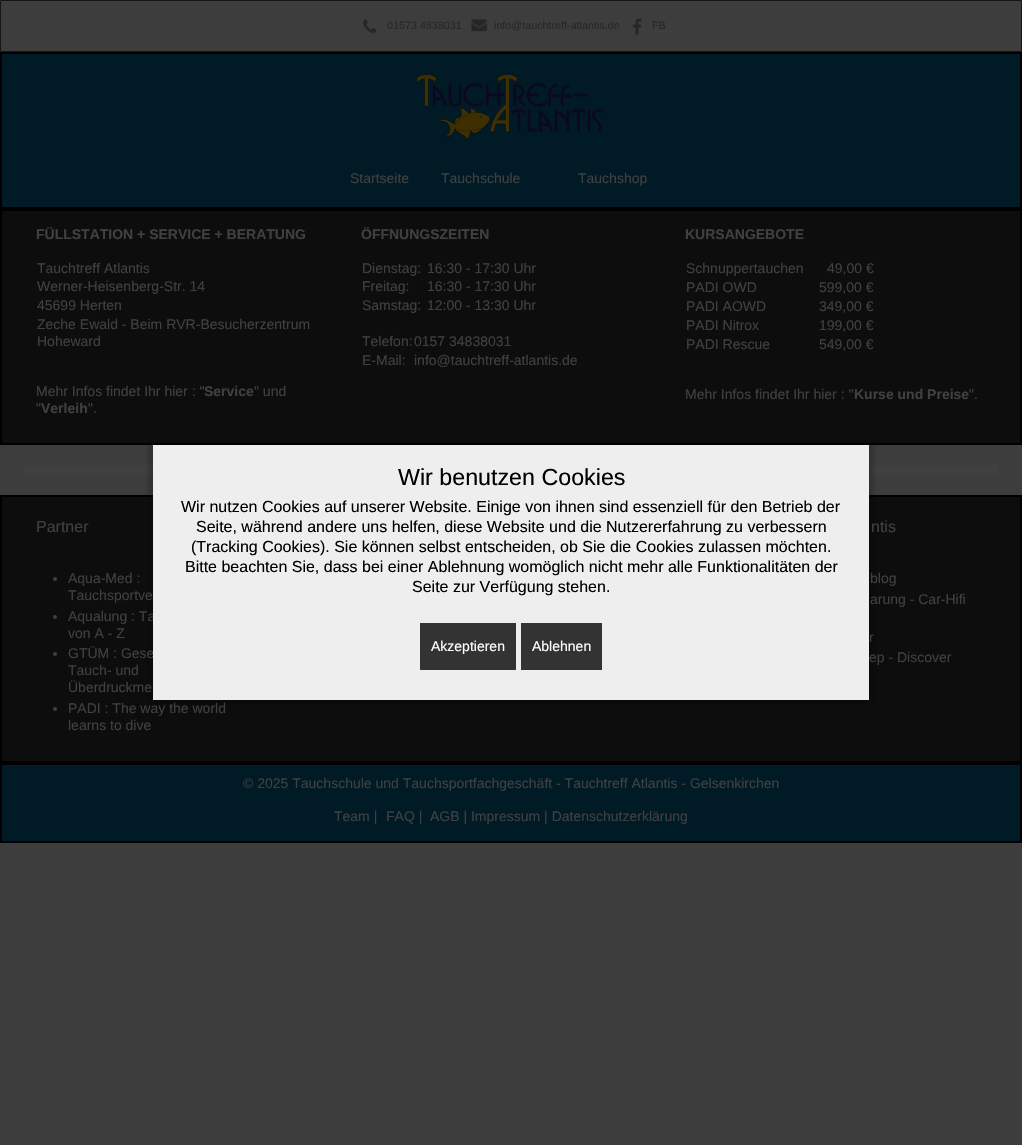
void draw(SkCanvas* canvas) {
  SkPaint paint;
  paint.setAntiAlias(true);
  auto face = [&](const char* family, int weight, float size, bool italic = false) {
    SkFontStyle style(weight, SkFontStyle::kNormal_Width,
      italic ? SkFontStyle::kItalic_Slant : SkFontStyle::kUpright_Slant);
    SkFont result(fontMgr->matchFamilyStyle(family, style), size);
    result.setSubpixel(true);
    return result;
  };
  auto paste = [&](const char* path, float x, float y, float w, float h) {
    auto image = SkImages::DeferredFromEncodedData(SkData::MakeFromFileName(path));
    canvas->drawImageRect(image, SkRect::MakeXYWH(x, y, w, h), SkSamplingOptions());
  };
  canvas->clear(0xff3d3d3d);
  paint.setStroke(true);
  paint.setStrokeWidth(1);
  paint.setColor(0xff151515);
  canvas->drawRoundRect(SkRect::MakeXYWH(0.5f, 0.5f, 1021, 51), 0.5f, 0.5f, paint);
  paste("img/1.png", 362, 19, 15, 14);
  paste("img/2.png", 470, 18, 18, 14);
  paste("img/3.png", 632, 18, 11, 18);
  paint.setStroke(false);
  paint.setColor(0xff001a26);
  canvas->drawRect(SkRect::MakeXYWH(1, 53, 1020, 155), paint);
  paint.setStroke(true);
  paint.setStrokeWidth(2);
  paint.setColor(0xff000000);
  canvas->drawRect(SkRect::MakeXYWH(1, 53, 1020, 155), paint);
  paste("img/4.png", 416, 74, 188, 65);
  paint.setStroke(false);
  paint.setColor(0xff0d0d0d);
  canvas->drawRect(SkRect::MakeXYWH(1, 210, 1020, 234), paint);
  paint.setStroke(true);
  paint.setColor(0xff000000);
  canvas->drawRect(SkRect::MakeXYWH(1, 210, 1020, 234), paint);
  paint.setStroke(false);
  paint.setColor(0xff404040);
  canvas->drawRect(SkRect::MakeXYWH(24, 465, 974, 10), paint);
  paint.setColor(0xff0d0d0d);
  canvas->drawRect(SkRect::MakeXYWH(1, 496, 1020, 266), paint);
  paint.setStroke(true);
  paint.setColor(0xff000000);
  canvas->drawRect(SkRect::MakeXYWH(1, 496, 1020, 266), paint);
  paint.setStroke(false);
  paint.setColor(0xff404040);
  canvas->drawCircle(55, 579, 2, paint);
  canvas->drawCircle(55, 617, 2, paint);
  canvas->drawCircle(55, 654, 2, paint);
  canvas->drawCircle(55, 709, 2, paint);
  paint.setColor(0xff001a26);
  canvas->drawRect(SkRect::MakeXYWH(1, 764, 1020, 78), paint);
  paint.setStroke(true);
  paint.setColor(0xff000000);
  canvas->drawRect(SkRect::MakeXYWH(1, 764, 1020, 78), paint);
  paint.setStroke(false);
  paint.setColor(0x36000000);
  paint.setMaskFilter(SkMaskFilter::MakeBlur(kNormal_SkBlurStyle, 2.5f));
  canvas->drawRect(SkRect::MakeXYWH(149, 441, 724, 263), paint);
  paint.setMaskFilter(nullptr);
  auto f0 = face("Liberation Sans", 400, 10.75f);
  paint.setColor(0xff262626);
  {
    const struct { const char* s; float x, y; } items[] = {
      {"01573 4838031", 387, 29},
      {"info@tauchtreff-atlantis.de", 494, 29},
      {"FB", 652, 29},
    };
    for (auto [s, x, y] : items) {
      canvas->drawString(s, x, y, f0, paint);
    }
  }
  auto f1 = face("Liberation Sans", 400, 14);
  paint.setColor(0xff404040);
  {
    const struct { const char* s; float x, y; } items[] = {
      {"Startseite", 350, 183},
      {"Tauchschule", 441, 183},
      {"Tauchshop", 578, 183},
    };
    for (auto [s, x, y] : items) {
      canvas->drawString(s, x, y, f1, paint);
    }
  }
  auto f2 = face("Liberation Sans", 700, 14);
  canvas->drawString("FÜLLSTATION + SERVICE + BERATUNG", 36, 239, f2, paint);
  {
    const struct { const char* s; float x, y; } items[] = {
      {"Tauchtreff Atlantis", 37, 273},
      {"Werner-Heisenberg-Str. 14", 37, 291},
      {"45699 Herten", 37, 310},
      {"Zeche Ewald - Beim RVR-Besucherzentrum", 37, 329},
      {"Hoheward", 37, 346},
      {"Mehr Infos findet Ihr hier : \"", 36, 396},
    };
    for (auto [s, x, y] : items) {
      canvas->drawString(s, x, y, f1, paint);
    }
  }
  canvas->drawString("Service", 204, 396, f2, paint);
  canvas->drawString("\" und", 254, 396, f1, paint);
  canvas->drawString("\"", 36, 413, f1, paint);
  canvas->drawString("Verleih", 41, 413, f2, paint);
  canvas->drawString("\".", 88, 413, f1, paint);
  canvas->drawString("ÖFFNUNGSZEITEN", 361, 239, f2, paint);
  {
    const struct { const char* s; float x, y; } items[] = {
      {"Dienstag:", 362, 273},
      {"16:30 - 17:30 Uhr", 427, 273},
      {"Freitag:", 362, 291},
      {"16:30 - 17:30 Uhr", 427, 291},
      {"Samstag:", 362, 310},
      {"12:00 - 13:30 Uhr", 427, 310},
      {"Telefon:", 362, 346},
      {"0157 34838031", 414, 346},
      {"E-Mail:", 362, 365},
      {"info@tauchtreff-atlantis.de", 414, 365},
    };
    for (auto [s, x, y] : items) {
      canvas->drawString(s, x, y, f1, paint);
    }
  }
  canvas->drawString("KURSANGEBOTE", 685, 239, f2, paint);
  {
    const struct { const char* s; float x, y; } items[] = {
      {"Schnuppertauchen", 686, 273},
      {"49,00 €", 827, 273},
      {"PADI OWD", 686, 292},
      {"599,00 €", 819, 292},
      {"PADI AOWD", 686, 311},
      {"349,00 €", 819, 311},
      {"PADI Nitrox", 686, 330},
      {"199,00 €", 819, 330},
      {"PADI Rescue", 686, 349},
      {"549,00 €", 819, 349},
      {"Mehr Infos findet Ihr hier : \"", 685, 399},
    };
    for (auto [s, x, y] : items) {
      canvas->drawString(s, x, y, f1, paint);
    }
  }
  canvas->drawString("Kurse und Preise", 854, 399, f2, paint);
  canvas->drawString("\".", 969, 399, f1, paint);
  auto f3 = face("Liberation Sans", 400, 16);
  canvas->drawString("Partner", 36, 532, f3, paint);
  {
    const struct { const char* s; float x, y; } items[] = {
      {"Aqua-Med :", 68, 583},
      {"Tauchsportve", 68, 600},
      {"Aqualung : Ta", 68, 621},
      {"von A - Z", 68, 638},
      {"GTÜM : Gese", 68, 658},
      {"Tauch- und", 68, 675},
      {"Überdruckme", 68, 692},
      {"PADI : The way the world", 68, 713},
      {"learns to dive", 68, 730},
    };
    for (auto [s, x, y] : items) {
      canvas->drawString(s, x, y, f1, paint);
    }
  }
  canvas->drawString("ntis", 871, 532, f3, paint);
  {
    const struct { const char* s; float x, y; } items[] = {
      {"blog", 870, 583},
      {"arung - Car-Hifi", 870, 604},
      {"r", 869, 642},
      {"ep - Discover", 869, 662},
      {"© 2025 Tauchschule und Tauchsportfachgeschäft - Tauchtreff Atlantis - Gelsenkirchen", 243, 788},
      {"Team |", 334, 821},
      {"FAQ |", 386, 821},
      {"AGB | Impressum | Datenschutzerklärung", 430, 821},
    };
    for (auto [s, x, y] : items) {
      canvas->drawString(s, x, y, f1, paint);
    }
  }
  paint.setColor(0xffeeeeee);
  canvas->drawRect(SkRect::MakeXYWH(153, 445, 716, 255), paint);
  auto f4 = face("Liberation Sans", 400, 23.25f);
  paint.setColor(0xff000000);
  canvas->drawString("Wir benutzen Cookies", 398, 485, f4, paint);
  {
    const struct { const char* s; float x, y; } items[] = {
      {"Wir nutzen Cookies auf unserer Website. Einige von ihnen sind essenziell für den Betrieb der", 181, 512},
      {"Seite, während andere uns helfen, diese Website und die Nutzererfahrung zu verbessern", 196, 532},
      {"(Tracking Cookies). Sie können selbst entscheiden, ob Sie die Cookies zulassen möchten.", 191, 552},
      {"Bitte beachten Sie, dass bei einer Ablehnung womöglich nicht mehr alle Funktionalitäten der", 185, 572},
      {"Seite zur Verfügung stehen.", 412, 592},
    };
    for (auto [s, x, y] : items) {
      canvas->drawString(s, x, y, f3, paint);
    }
  }
  paint.setColor(0xff333333);
  canvas->drawRect(SkRect::MakeXYWH(420, 623, 96, 47), paint);
  paint.setColor(0xffffffff);
  canvas->drawString("Akzeptieren", 431, 651, f1, paint);
  paint.setColor(0xff333333);
  canvas->drawRect(SkRect::MakeXYWH(521, 623, 81, 47), paint);
  paint.setColor(0xffffffff);
  canvas->drawString("Ablehnen", 532, 651, f1, paint);
}
